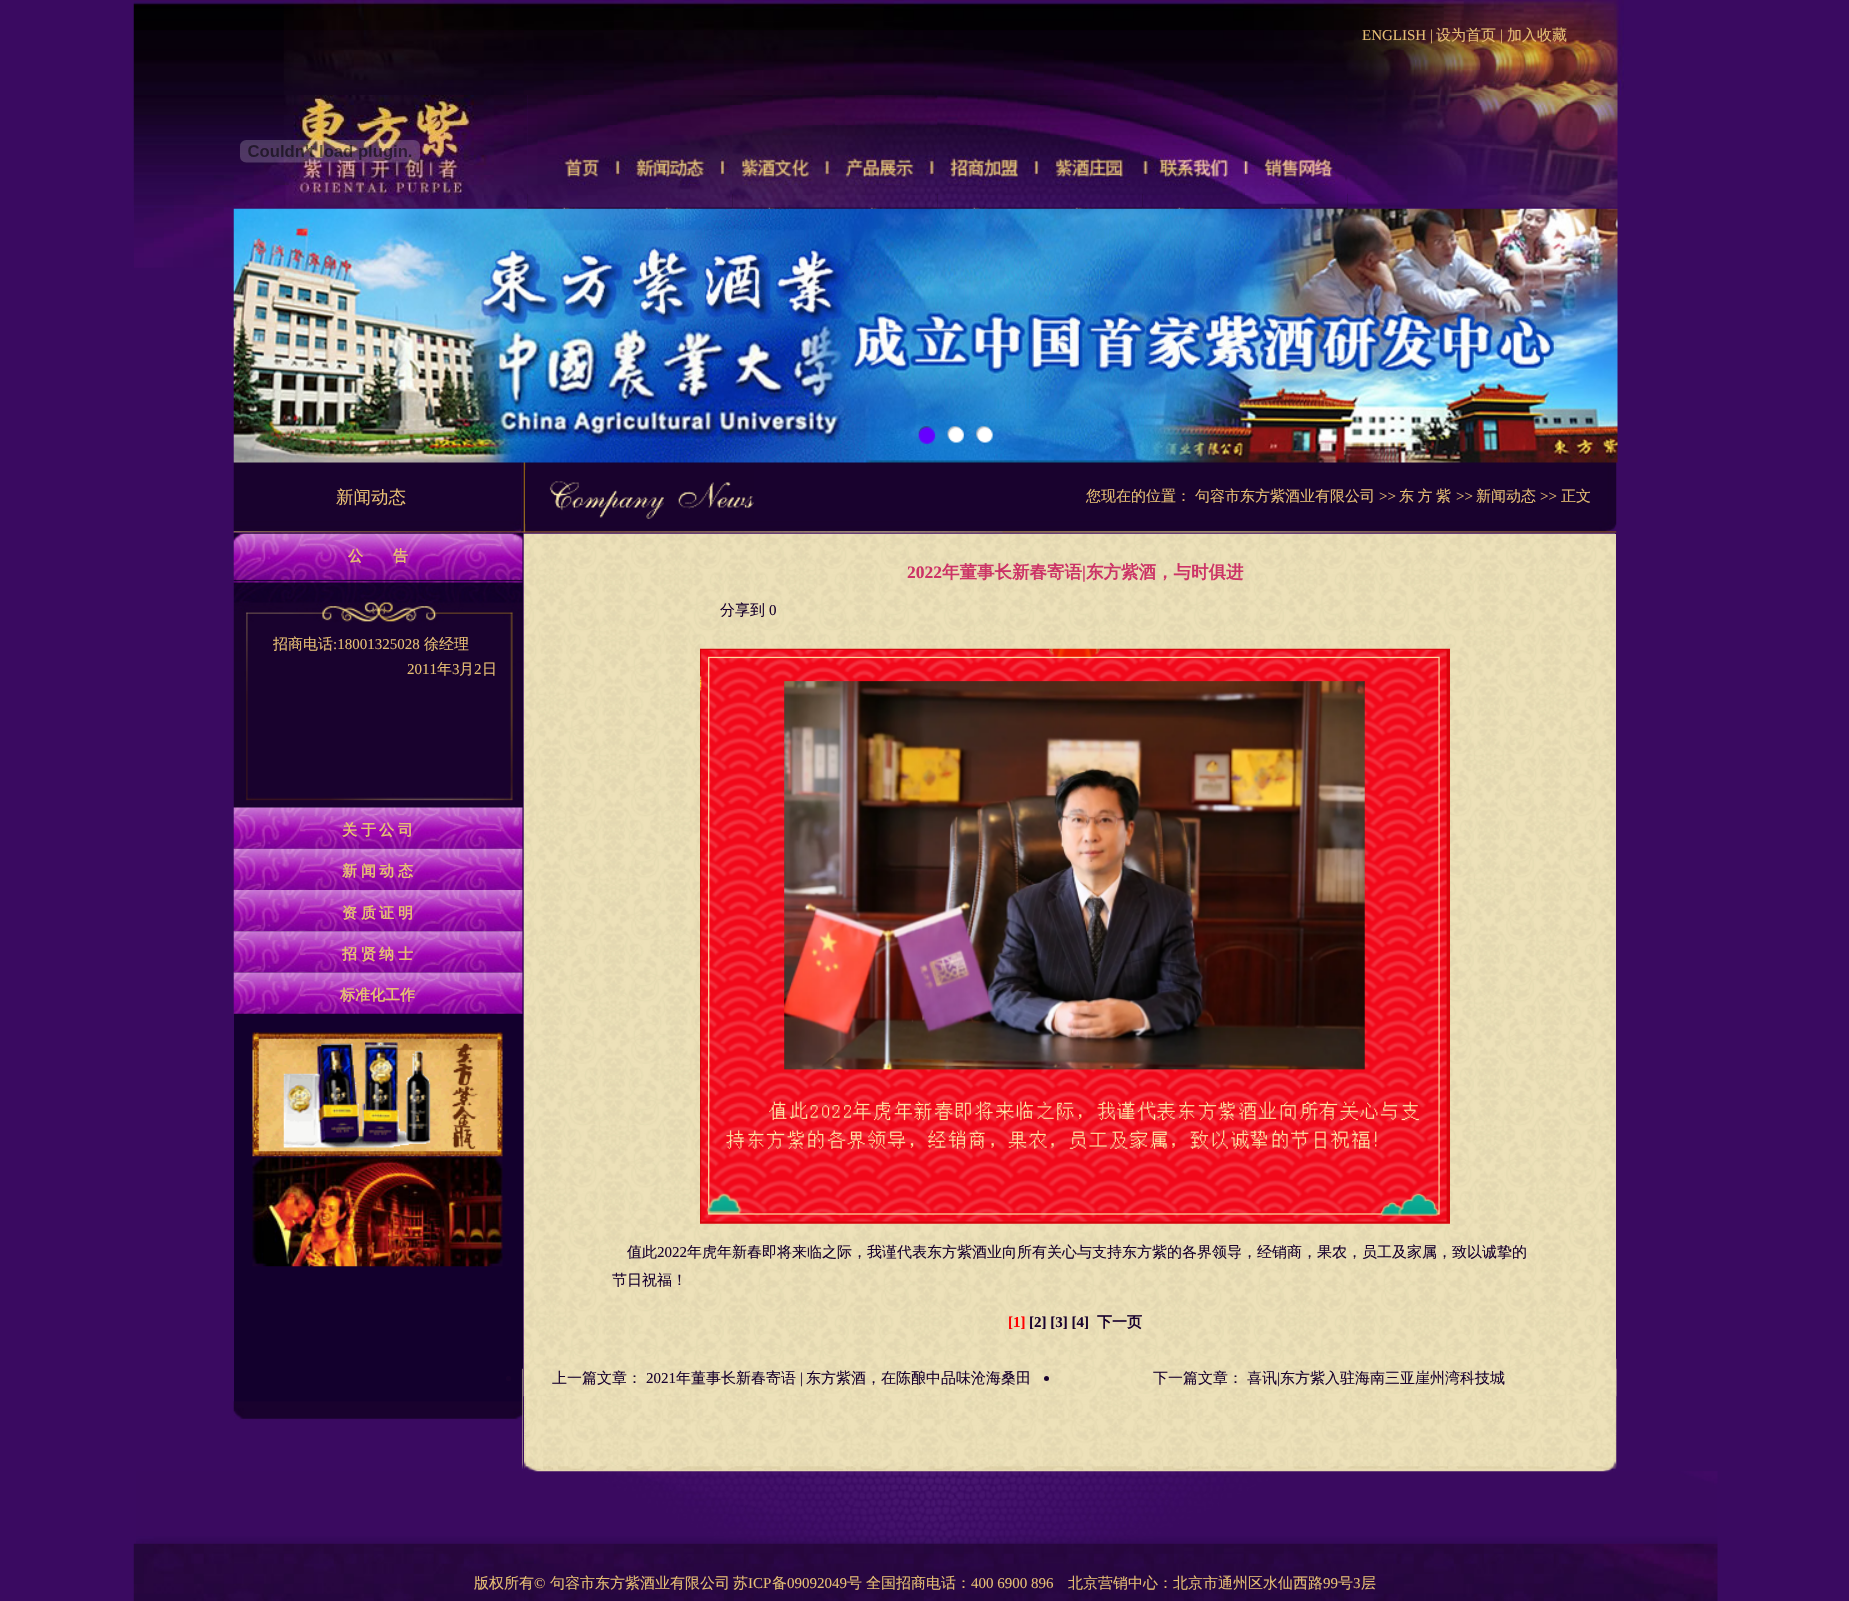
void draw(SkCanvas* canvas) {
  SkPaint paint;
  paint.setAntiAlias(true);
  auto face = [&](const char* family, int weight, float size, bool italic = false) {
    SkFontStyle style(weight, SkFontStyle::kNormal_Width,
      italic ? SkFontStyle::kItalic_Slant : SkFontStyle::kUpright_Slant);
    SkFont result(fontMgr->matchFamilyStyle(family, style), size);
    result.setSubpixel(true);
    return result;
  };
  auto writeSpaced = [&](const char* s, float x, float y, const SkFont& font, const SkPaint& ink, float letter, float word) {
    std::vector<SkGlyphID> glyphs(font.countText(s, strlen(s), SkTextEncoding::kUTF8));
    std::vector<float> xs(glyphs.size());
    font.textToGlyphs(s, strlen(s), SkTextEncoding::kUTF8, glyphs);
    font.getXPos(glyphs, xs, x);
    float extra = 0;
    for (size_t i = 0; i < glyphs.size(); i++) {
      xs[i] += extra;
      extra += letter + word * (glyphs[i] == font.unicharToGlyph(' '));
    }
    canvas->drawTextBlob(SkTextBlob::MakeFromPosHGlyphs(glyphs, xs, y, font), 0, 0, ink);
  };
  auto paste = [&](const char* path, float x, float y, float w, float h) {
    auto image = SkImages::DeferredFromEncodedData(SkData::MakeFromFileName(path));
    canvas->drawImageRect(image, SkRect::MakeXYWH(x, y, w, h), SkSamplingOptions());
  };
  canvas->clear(0xff3a0a61);
  paste("img/1.png", 133, 0, 1491, 95);
  paste("img/2.png", 133, 95, 395, 113);
  paste("img/3.png", 240, 140, 180, 23);
  paste("img/4.png", 527, 95, 1091, 113);
  paste("img/6.png", 527, 193, 103, 16);
  paste("img/5.png", 527, 95, 103, 113);
  paste("img/8.png", 630, 193, 103, 16);
  paste("img/7.png", 630, 95, 103, 113);
  paste("img/10.png", 732, 193, 103, 16);
  paste("img/9.png", 732, 95, 103, 113);
  paste("img/12.png", 835, 193, 103, 16);
  paste("img/11.png", 835, 95, 103, 113);
  paste("img/14.png", 937, 193, 103, 16);
  paste("img/13.png", 937, 95, 103, 113);
  paste("img/16.png", 1040, 193, 103, 16);
  paste("img/15.png", 1040, 103, 103, 105);
  paste("img/18.png", 1142, 193, 103, 16);
  paste("img/17.png", 1142, 95, 103, 113);
  paste("img/20.png", 1245, 193, 103, 16);
  paste("img/19.png", 1245, 95, 103, 113);
  paste("img/21.png", 134, 207, 100, 61);
  paste("img/26.png", 233, 461, 289, 72);
  paste("img/27.png", 521, 462, 319, 71);
  paste("img/29.png", 840, 462, 777, 71);
  paste("img/22.png", 233, 208, 1385, 255);
  paste("img/23.png", 918, 426, 18, 18);
  paste("img/24.png", 947, 426, 17, 17);
  paste("img/25.png", 976, 426, 17, 17);
  paste("img/28.png", 525, 470, 229, 54);
  paint.setColor(0xff13002d);
  canvas->drawRect(SkRect::MakeXYWH(234, 533, 289, 887), paint);
  paste("img/30.png", 233, 1401, 290, 19);
  paste("img/31.png", 233, 532, 290, 50);
  paste("img/32.png", 233, 581, 290, 227);
  paste("img/33.png", 233, 807, 290, 42);
  paste("img/34.png", 233, 848, 290, 42);
  paste("img/35.png", 233, 890, 290, 42);
  paste("img/36.png", 233, 931, 290, 42);
  paste("img/37.png", 233, 972, 290, 42);
  paste("img/38.png", 252, 1032, 251, 125);
  paste("img/39.png", 252, 1157, 251, 110);
  paint.setColor(0xffe9ddb5);
  canvas->drawRect(SkRect::MakeXYWH(524, 534, 1092, 825), paint);
  paste("img/44.png", 136, 1471, 1582, 73);
  paste("img/40.png", 522, 1368, 1095, 104);
  paint.setColor(0xff3a0a61);
  canvas->drawRect(SkRect::MakeXYWH(523, 1368, 1, 103), paint);
  paste("img/41.png", 523, 533, 1092, 826);
  paste("img/42.png", 700, 648, 750, 576);
  paste("img/43.png", 523, 1358, 1094, 39);
  paint.setColor(0xff19022e);
  canvas->drawCircle(508.5f, 1378.5f, 2.5f, paint);
  canvas->drawCircle(1046.5f, 1378.5f, 2.5f, paint);
  paste("img/45.png", 133, 1543, 1585, 58);
  auto f0 = face("Liberation Serif", 400, 15);
  paint.setColor(0xffe6be73);
  canvas->drawString("ENGLISH |", 1362, 40, f0, paint);
  auto f1 = face("WenQuanYi Zen Hei", 500, 15);
  canvas->drawString("设为首页", 1436, 40, f1, paint);
  canvas->drawString("|", 1500, 40, f0, paint);
  canvas->drawString("加入收藏", 1507, 40, f1, paint);
  auto f2 = face("WenQuanYi Zen Hei", 500, 17.5f);
  canvas->drawString("新闻动态", 336, 503, f2, paint);
  canvas->drawString("您现在的位置：", 1086, 501, f1, paint);
  canvas->drawString("句容市东方紫酒业有限公司", 1195, 501, f1, paint);
  canvas->drawString(">>", 1379, 501, f0, paint);
  writeSpaced("东 方 紫", 1399, 501, f1, paint, 0, -1);
  canvas->drawString(">>", 1456, 501, f0, paint);
  canvas->drawString("新闻动态", 1476, 501, f1, paint);
  canvas->drawString(">>", 1540, 501, f0, paint);
  canvas->drawString("正文", 1561, 501, f1, paint);
  auto f3 = face("WenQuanYi Zen Hei", 700, 15);
  canvas->drawString("公", 348, 561, f3, paint);
  canvas->drawString("告", 393, 561, f3, paint);
  canvas->drawString("招商电话", 273, 649, f1, paint);
  canvas->drawString(":18001325028", 333, 649, f0, paint);
  canvas->drawString("徐经理", 424, 649, f1, paint);
  canvas->drawString("2011", 407, 674, f0, paint);
  canvas->drawString("年", 437, 674, f1, paint);
  canvas->drawString("3", 452, 674, f0, paint);
  canvas->drawString("月", 459, 674, f1, paint);
  canvas->drawString("2", 474, 674, f0, paint);
  canvas->drawString("日", 482, 674, f1, paint);
  {
    const struct { const char* s; float x, y; } items[] = {
      {"关", 342, 835},
      {"于", 361, 835},
      {"公", 379, 835},
      {"司", 398, 835},
      {"新", 342, 876},
      {"闻", 361, 876},
      {"动", 379, 876},
      {"态", 398, 876},
      {"资", 342, 918},
      {"质", 361, 918},
      {"证", 379, 918},
      {"明", 398, 918},
      {"招", 342, 959},
      {"贤", 361, 959},
      {"纳", 379, 959},
      {"士", 398, 959},
      {"标准化工作", 340, 1000},
    };
    for (auto [s, x, y] : items) {
      canvas->drawString(s, x, y, f3, paint);
    }
  }
  auto f4 = face("Liberation Serif", 700, 17.5f);
  paint.setColor(0xffcc3366);
  canvas->drawString("2022", 907, 578, f4, paint);
  auto f5 = face("WenQuanYi Zen Hei", 700, 17.5f);
  canvas->drawString("年董事长新春寄语", 942, 578, f5, paint);
  canvas->drawString("|", 1082, 578, f4, paint);
  canvas->drawString("东方紫酒，与时俱进", 1086, 578, f5, paint);
  paint.setColor(0xff19022e);
  canvas->drawString("分享到", 720, 615, f1, paint);
  canvas->drawString("0", 769, 615, f0, paint);
  canvas->drawString("值此", 627, 1257, f1, paint);
  canvas->drawString("2022", 657, 1257, f0, paint);
  canvas->drawString("年虎年新春即将来临之际，我谨代表东方紫酒业向所有关心与支持东方紫的各界领导，经销商，果农，员工及家属，致以诚挚的", 687, 1257, f1, paint);
  canvas->drawString("节日祝福！", 612, 1285, f1, paint);
  auto f6 = face("Liberation Serif", 700, 15);
  paint.setColor(0xffff0000);
  canvas->drawString("[1]", 1008, 1327, f6, paint);
  paint.setColor(0xff19022e);
  canvas->drawString("[2] [3] [4]", 1029, 1327, f6, paint);
  canvas->drawString("下一页", 1097, 1327, f3, paint);
  canvas->drawString("上一篇文章：", 552, 1383, f1, paint);
  canvas->drawString("2021", 646, 1383, f0, paint);
  canvas->drawString("年董事长新春寄语", 676, 1383, f1, paint);
  canvas->drawString("|", 800, 1383, f0, paint);
  {
    const struct { const char* s; float x, y; } items[] = {
      {"东方紫酒，在陈酿中品味沧海桑田", 806, 1383},
      {"下一篇文章：", 1153, 1383},
      {"喜讯", 1247, 1383},
    };
    for (auto [s, x, y] : items) {
      canvas->drawString(s, x, y, f1, paint);
    }
  }
  canvas->drawString("|", 1277, 1383, f0, paint);
  canvas->drawString("东方紫入驻海南三亚崖州湾科技城", 1280, 1383, f1, paint);
  paint.setColor(0xffe6be73);
  canvas->drawString("版权所有", 474, 1588, f1, paint);
  canvas->drawString("©", 534, 1588, f0, paint);
  canvas->drawString("句容市东方紫酒业有限公司", 550, 1588, f1, paint);
  canvas->drawString("苏", 733, 1588, f1, paint);
  canvas->drawString("ICP", 748, 1588, f0, paint);
  canvas->drawString("备", 772, 1588, f1, paint);
  canvas->drawString("09092049", 787, 1588, f0, paint);
  canvas->drawString("号", 847, 1588, f1, paint);
  canvas->drawString("全国招商电话：", 866, 1588, f1, paint);
  canvas->drawString("400 6900 896", 971, 1588, f0, paint);
  canvas->drawString("北京营销中心：北京市通州区水仙西路", 1068, 1588, f1, paint);
  canvas->drawString("99", 1323, 1588, f0, paint);
  canvas->drawString("号", 1338, 1588, f1, paint);
  canvas->drawString("3", 1353, 1588, f0, paint);
  canvas->drawString("层", 1361, 1588, f1, paint);
}
